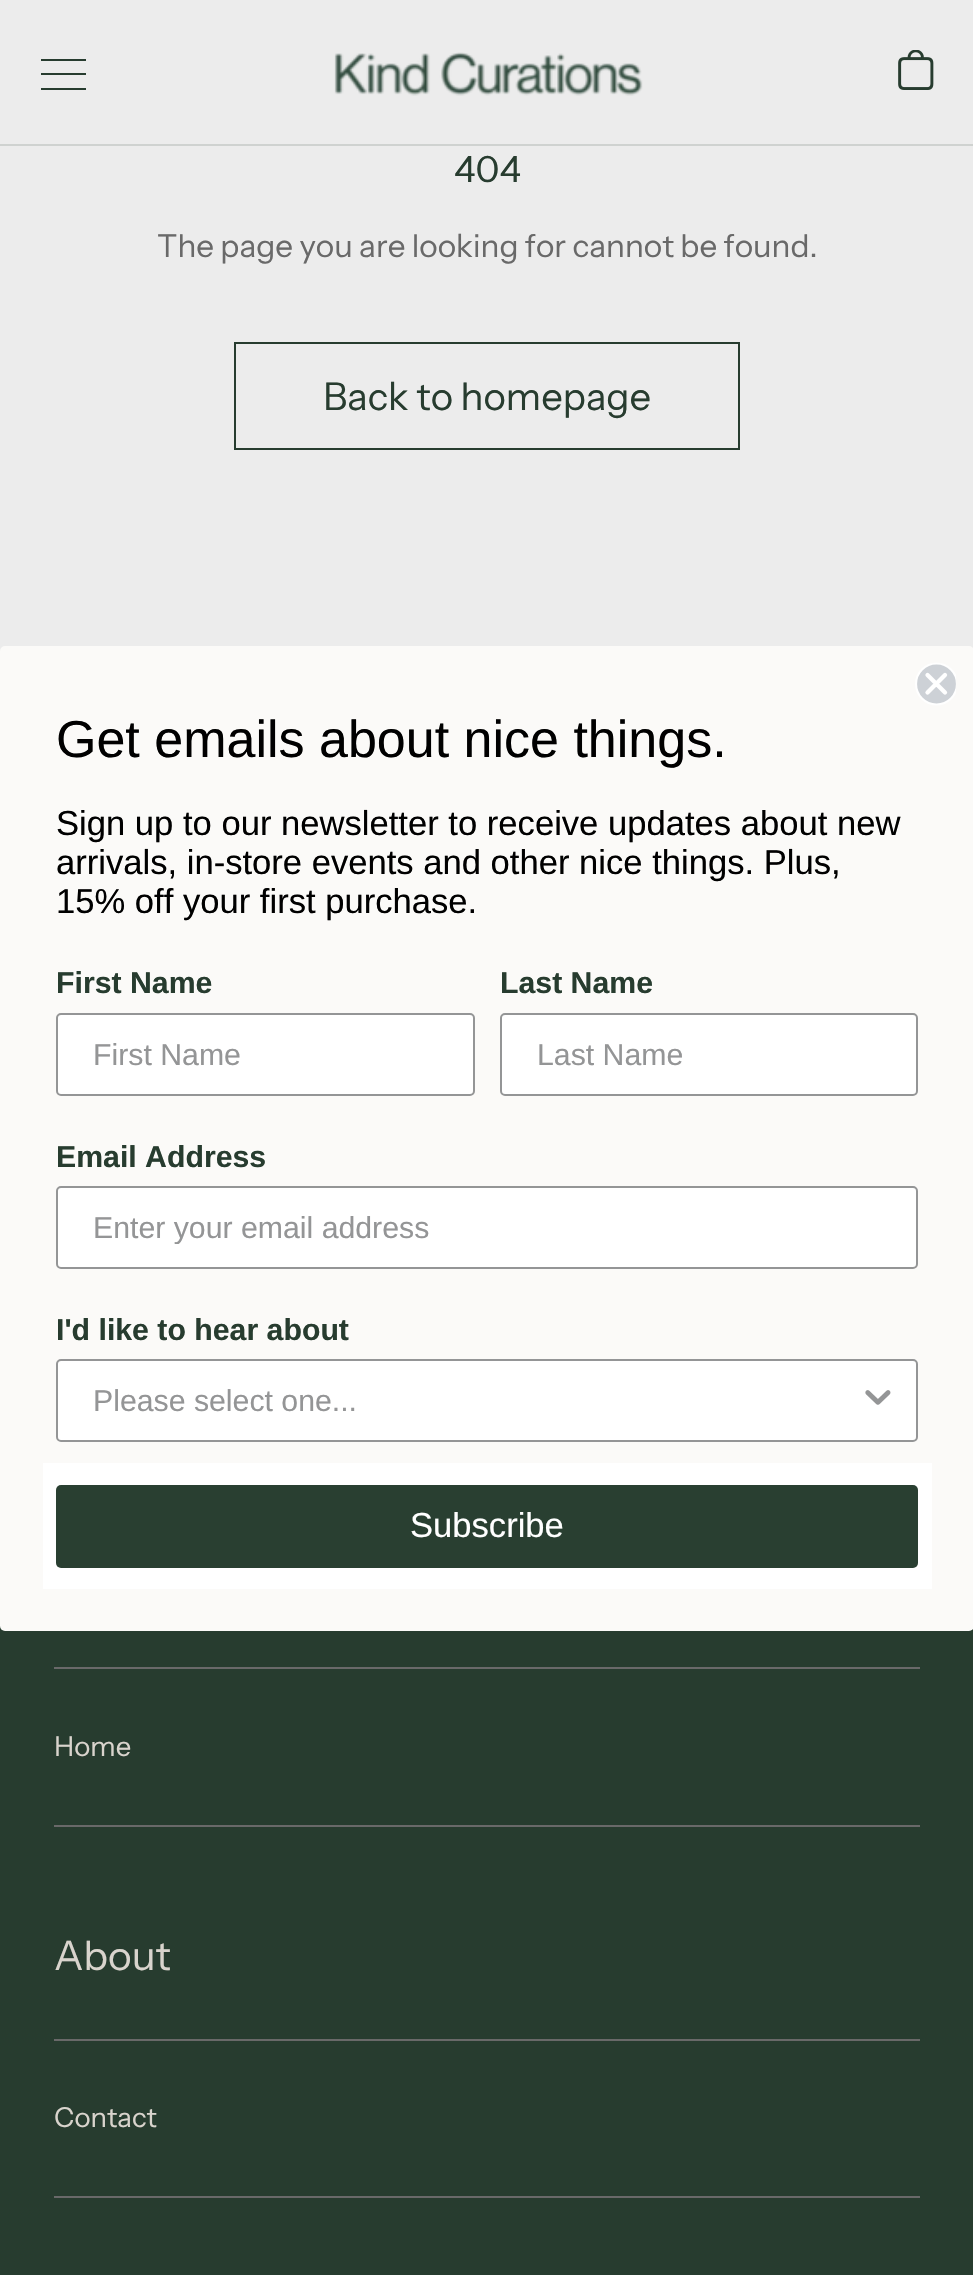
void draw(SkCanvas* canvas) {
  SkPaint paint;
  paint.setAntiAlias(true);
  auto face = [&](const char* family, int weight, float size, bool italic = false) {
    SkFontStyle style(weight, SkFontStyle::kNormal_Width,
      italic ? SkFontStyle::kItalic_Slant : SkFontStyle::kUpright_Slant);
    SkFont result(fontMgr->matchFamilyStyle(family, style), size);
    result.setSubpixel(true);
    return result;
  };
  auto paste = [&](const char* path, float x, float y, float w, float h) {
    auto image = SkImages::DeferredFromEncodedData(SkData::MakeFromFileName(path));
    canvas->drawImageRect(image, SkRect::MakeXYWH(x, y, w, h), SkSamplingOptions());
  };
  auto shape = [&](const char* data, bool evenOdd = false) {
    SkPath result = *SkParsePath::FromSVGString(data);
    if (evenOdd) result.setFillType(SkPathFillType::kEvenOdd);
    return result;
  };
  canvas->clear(0xffececec);
  paint.setColor(0xffcfd2d0);
  canvas->drawRect(SkRect::MakeXYWH(0, 144, 973, 2), paint);
  canvas->save();
  canvas->clipRect(SkRect::MakeXYWH(41, 59, 45, 31));
  paint.setColor(0xff273c2f);
  canvas->drawPath(shape("M40 90V88H86V90ZM40 73H86V75H40ZM40 58H86V61H40Z"), paint);
  canvas->restore();
  paste("img/1.png", 334, 52, 309, 44);
  paste("img/2.png", 898, 50, 36, 40);
  paint.setStroke(true);
  paint.setStrokeWidth(2);
  canvas->drawRect(SkRect::MakeXYWH(235, 343, 504, 106), paint);
  paint.setStroke(false);
  {
    const struct { float x, y, w, h; SkColor color; } items[] = {
      {0, 1626, 973, 649, 0xff273c2f},
      {54, 1667, 866, 2, 0xff696969},
      {54, 1825, 866, 2, 0xff696969},
      {54, 2039, 866, 2, 0xff696969},
      {54, 2196, 866, 2, 0xff696969},
    };
    for (auto [x, y, w, h, color] : items) {
      paint.setColor(color);
      canvas->drawRect(SkRect::MakeXYWH(x, y, w, h), paint);
    }
  }
  paint.setColor(0xfffbfaf8);
  canvas->drawRoundRect(SkRect::MakeXYWH(0, 646, 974, 985), 5, 5, paint);
  canvas->save();
  canvas->clipRect(SkRect::MakeXYWH(914, 662, 42, 45));
  paint.setColor(0xffcdd1d6);
  canvas->drawCircle(936.5f, 684, 20.5f, paint);
  paint.setStroke(true);
  paint.setStrokeWidth(2.2f);
  paint.setColor(0xffffffff);
  canvas->drawCircle(936.5f, 684, 20.5f, paint);
  canvas->restore();
  paint.setStrokeWidth(4.3f);
  paint.setStrokeCap(SkPaint::kRound_Cap);
  paint.setStrokeJoin(SkPaint::kRound_Join);
  canvas->drawPath(shape("M927.5 675L945 692.5M927.5 692.5L945 675Z"), paint);
  paint.setStroke(false);
  canvas->drawRoundRect(SkRect::MakeXYWH(57, 1014, 417, 81), 4, 4, paint);
  paint.setStroke(true);
  paint.setStrokeWidth(2);
  paint.setStrokeCap(SkPaint::kButt_Cap);
  paint.setStrokeJoin(SkPaint::kMiter_Join);
  paint.setColor(0xff949596);
  canvas->drawRoundRect(SkRect::MakeXYWH(57, 1014, 417, 81), 4, 4, paint);
  paint.setStroke(false);
  paint.setColor(0xffffffff);
  canvas->drawRoundRect(SkRect::MakeXYWH(501, 1014, 416, 81), 4, 4, paint);
  paint.setStroke(true);
  paint.setColor(0xff949596);
  canvas->drawRoundRect(SkRect::MakeXYWH(501, 1014, 416, 81), 4, 4, paint);
  paint.setStroke(false);
  paint.setColor(0xffffffff);
  canvas->drawRoundRect(SkRect::MakeXYWH(57, 1187, 860, 81), 4, 4, paint);
  paint.setStroke(true);
  paint.setColor(0xff949596);
  canvas->drawRoundRect(SkRect::MakeXYWH(57, 1187, 860, 81), 4, 4, paint);
  paint.setStroke(false);
  paint.setColor(0xffffffff);
  canvas->drawRoundRect(SkRect::MakeXYWH(57, 1360, 860, 81), 4, 4, paint);
  paint.setStroke(true);
  paint.setColor(0xff949596);
  canvas->drawRoundRect(SkRect::MakeXYWH(57, 1360, 860, 81), 4, 4, paint);
  paste("img/3.png", 865, 1390, 26, 15);
  paint.setStroke(false);
  paint.setColor(0xffffffff);
  canvas->drawRect(SkRect::MakeXYWH(43, 1463, 889, 126), paint);
  paint.setColor(0xff293f31);
  canvas->drawRoundRect(SkRect::MakeXYWH(56, 1485, 862, 83), 5, 5, paint);
  auto f0 = face("Instrument Sans", 400, 36);
  paint.setColor(0xff273c2f);
  canvas->drawString("404", 454, 182, f0, paint);
  auto f1 = face("Instrument Sans", 400, 31.5f);
  paint.setColor(0xff696969);
  canvas->drawString("The page you are looking for cannot be found.", 157, 257, f1, paint);
  auto f2 = face("Instrument Sans", 400, 38.25f);
  paint.setColor(0xff273c2f);
  canvas->drawString("Back to homepage", 323, 410, f2, paint);
  auto f3 = face("Instrument Sans", 400, 27.5f);
  paint.setColor(0xffd9d4cd);
  canvas->drawString("Home", 54, 1756, f3, paint);
  auto f4 = face("Instrument Sans", 400, 40.5f);
  canvas->drawString("About", 54, 1970, f4, paint);
  canvas->drawString("Contact", 54, 2127, f3, paint);
  auto f5 = face("Liberation Sans", 400, 52);
  paint.setColor(0xff000000);
  canvas->drawString("Get emails about nice things.", 56, 757, f5, paint);
  auto f6 = face("Liberation Sans", 400, 34.6f);
  {
    const struct { const char* s; float x, y; } items[] = {
      {"Sign up to our newsletter to receive updates about new", 56, 835},
      {"arrivals, in-store events and other nice things. Plus,", 56, 874},
      {"15% off your first purchase.", 56, 913},
    };
    for (auto [s, x, y] : items) {
      canvas->drawString(s, x, y, f6, paint);
    }
  }
  auto f7 = face("Liberation Sans", 700, 30.25f);
  paint.setColor(0xff273c2f);
  canvas->drawString("First Name", 56, 993, f7, paint);
  auto f8 = face("Liberation Sans", 400, 30.25f);
  paint.setColor(0xff949596);
  canvas->drawString("First Name", 93, 1065, f8, paint);
  paint.setColor(0xff273c2f);
  canvas->drawString("Last Name", 500, 993, f7, paint);
  paint.setColor(0xff949596);
  canvas->drawString("Last Name", 537, 1065, f8, paint);
  paint.setColor(0xff273c2f);
  canvas->drawString("Email Address", 56, 1167, f7, paint);
  canvas->save();
  canvas->clipRect(SkRect::MakeXYWH(92, 1211, 824, 33));
  paint.setColor(0xff949596);
  canvas->drawString("Enter your email address", 93, 1238, f8, paint);
  canvas->restore();
  paint.setColor(0xff273c2f);
  canvas->drawString("I'd like to hear about", 56, 1340, f7, paint);
  paint.setColor(0xff949596);
  canvas->drawString("Please select one...", 93, 1411, f8, paint);
  paint.setColor(0xffffffff);
  canvas->drawString("Subscribe", 410, 1537, f6, paint);
}
